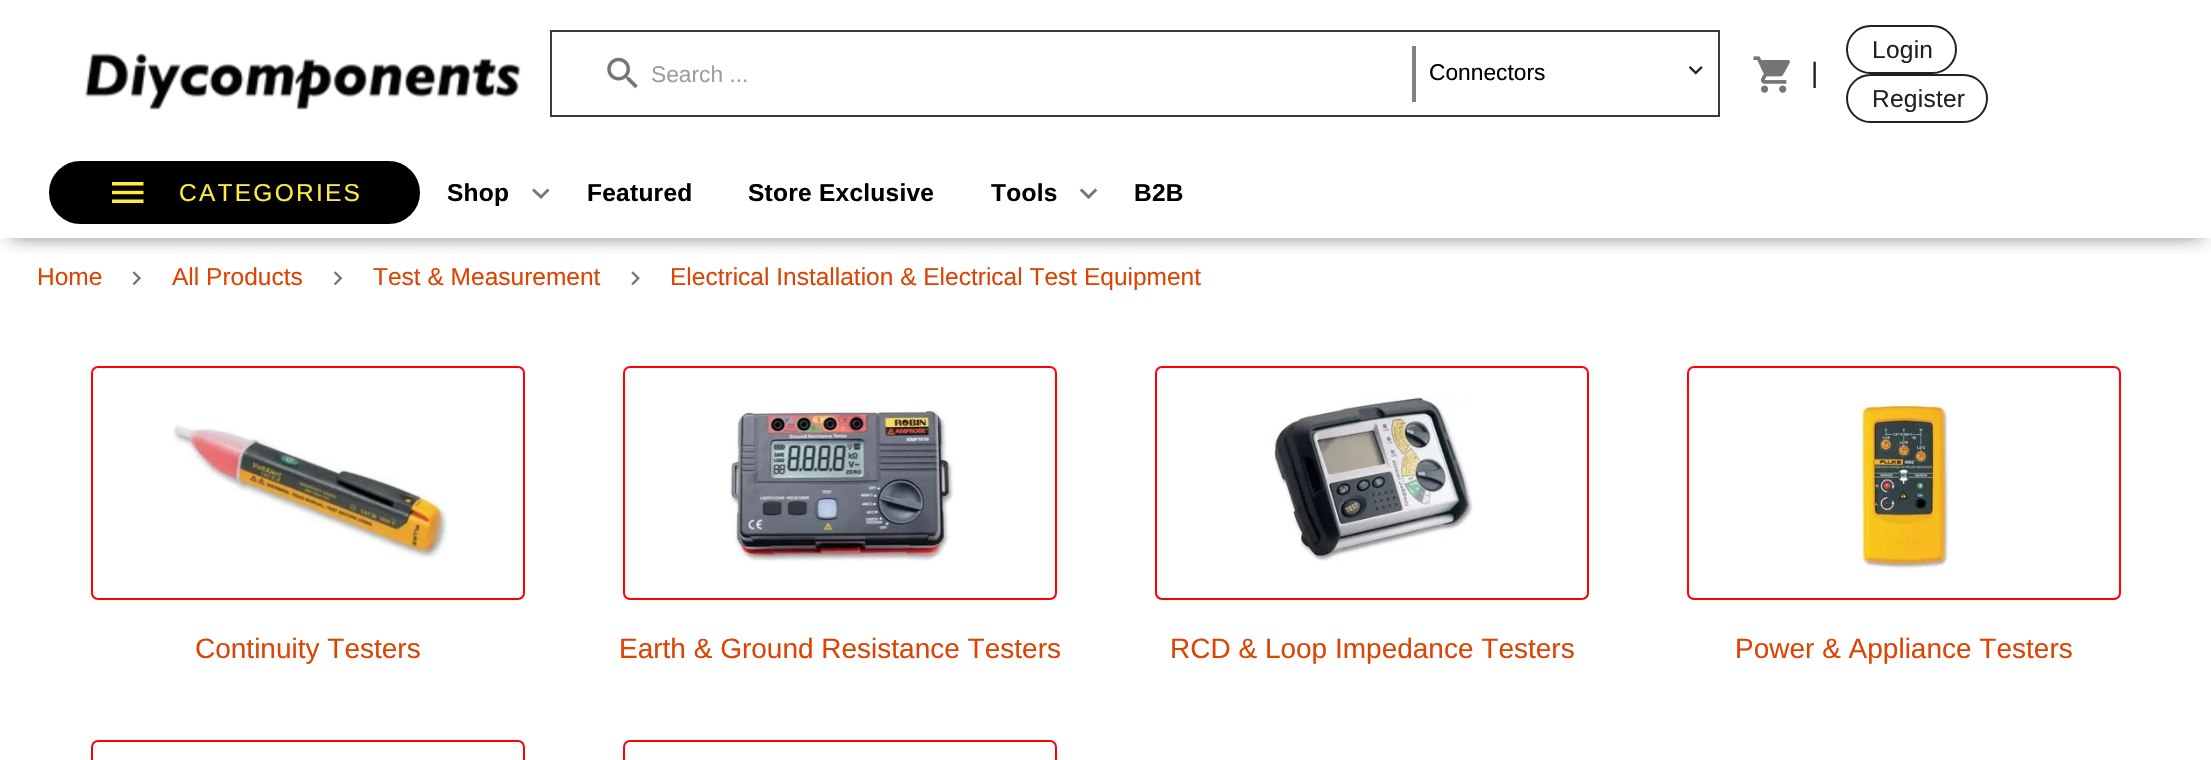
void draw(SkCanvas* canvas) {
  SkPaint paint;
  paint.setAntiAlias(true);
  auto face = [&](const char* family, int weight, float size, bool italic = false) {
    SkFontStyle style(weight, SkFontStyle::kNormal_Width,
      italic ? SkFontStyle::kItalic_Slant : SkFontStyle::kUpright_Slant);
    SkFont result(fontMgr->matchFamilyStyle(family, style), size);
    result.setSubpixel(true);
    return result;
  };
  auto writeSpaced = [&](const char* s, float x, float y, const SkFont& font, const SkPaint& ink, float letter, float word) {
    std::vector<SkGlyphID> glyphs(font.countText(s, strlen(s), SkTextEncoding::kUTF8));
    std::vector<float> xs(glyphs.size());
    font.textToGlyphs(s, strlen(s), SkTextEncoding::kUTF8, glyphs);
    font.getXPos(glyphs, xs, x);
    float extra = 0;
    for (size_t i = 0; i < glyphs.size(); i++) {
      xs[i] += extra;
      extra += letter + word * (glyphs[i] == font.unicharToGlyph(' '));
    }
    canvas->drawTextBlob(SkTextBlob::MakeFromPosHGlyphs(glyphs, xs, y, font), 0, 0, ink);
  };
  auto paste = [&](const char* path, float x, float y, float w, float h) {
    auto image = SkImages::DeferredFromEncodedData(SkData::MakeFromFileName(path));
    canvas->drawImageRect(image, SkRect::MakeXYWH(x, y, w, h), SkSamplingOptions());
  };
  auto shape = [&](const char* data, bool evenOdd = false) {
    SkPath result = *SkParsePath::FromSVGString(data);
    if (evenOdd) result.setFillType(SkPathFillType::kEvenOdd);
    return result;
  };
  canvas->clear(0xffffffff);
  canvas->save();
  canvas->clipRect(SkRect::MakeXYWH(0, 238, 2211, 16));
  paint.setColor(0xff5c5e65);
  paint.setMaskFilter(SkMaskFilter::MakeBlur(kNormal_SkBlurStyle, 9.5f));
  canvas->drawRect(SkRect::MakeXYWH(11, 18, 2191, 217), paint);
  paint.setMaskFilter(nullptr);
  canvas->restore();
  paste("img/1.png", 85, 53, 436, 57);
  paint.setStroke(true);
  paint.setStrokeWidth(2);
  paint.setColor(0xff393939);
  canvas->drawRect(SkRect::MakeXYWH(551, 31, 1168, 85), paint);
  paste("img/2.png", 607, 57, 31, 32);
  paint.setStroke(false);
  paint.setColor(0xff808080);
  canvas->drawRect(SkRect::MakeXYWH(1412, 46, 4, 56), paint);
  paste("img/3.png", 1688, 66, 15, 9);
  paste("img/4.png", 1753, 56, 37, 37);
  paint.setStroke(true);
  paint.setColor(0xff212121);
  canvas->drawRoundRect(SkRect::MakeXYWH(1847, 26, 109, 47), 23.5f, 23.5f, paint);
  canvas->drawRoundRect(SkRect::MakeXYWH(1847, 75, 140, 47), 23.5f, 23.5f, paint);
  paint.setStroke(false);
  paint.setColor(0xff000000);
  canvas->drawRoundRect(SkRect::MakeXYWH(50, 162, 369, 61), 30.5f, 30.5f, paint);
  paint.setStroke(true);
  canvas->drawRoundRect(SkRect::MakeXYWH(50, 162, 369, 61), 30.5f, 30.5f, paint);
  paste("img/5.png", 112, 182, 32, 21);
  paint.setStroke(false);
  paint.setColor(0xff757575);
  canvas->drawPath(shape("M534 188.5L541 195L547.5 188.5L549.5 190.5L541 199L532 190.5Z"), paint);
  paste("img/6.png", 1079, 188, 19, 11);
  paste("img/7.png", 132, 271, 9, 15);
  paste("img/8.png", 333, 271, 10, 15);
  paste("img/9.png", 631, 271, 9, 15);
  paint.setStroke(true);
  paint.setColor(0xffff0000);
  canvas->drawRoundRect(SkRect::MakeXYWH(92, 367, 432, 232), 6, 6, paint);
  paste("img/10.png", 173, 425, 275, 133);
  canvas->drawRoundRect(SkRect::MakeXYWH(624, 367, 432, 232), 6, 6, paint);
  paste("img/11.png", 730, 409, 224, 153);
  canvas->drawRoundRect(SkRect::MakeXYWH(1156, 367, 432, 232), 6, 6, paint);
  paste("img/12.png", 1274, 396, 199, 166);
  canvas->drawRoundRect(SkRect::MakeXYWH(1688, 367, 432, 232), 6, 6, paint);
  paste("img/13.png", 1858, 402, 91, 168);
  canvas->drawRoundRect(SkRect::MakeXYWH(92, 741, 432, 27), 6, 6, paint);
  canvas->drawRoundRect(SkRect::MakeXYWH(624, 741, 432, 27), 6, 6, paint);
  auto f0 = face("Liberation Sans", 400, 22.75f);
  paint.setStroke(false);
  paint.setColor(0xff9e9e9e);
  canvas->drawString("Search ...", 651, 82, f0, paint);
  paint.setColor(0xff000000);
  canvas->drawString("Connectors", 1429, 80, f0, paint);
  auto f1 = face("Liberation Sans", 400, 28);
  paint.setColor(0xff212121);
  canvas->drawString("|", 1811, 82, f1, paint);
  auto f2 = face("Liberation Sans", 400, 24.5f);
  writeSpaced("Login", 1872, 58, f2, paint, 0.25f, 0);
  writeSpaced("Register", 1872, 107, f2, paint, 0.25f, 0);
  paint.setColor(0xffffeb3b);
  writeSpaced("CATEGORIES", 179, 201, f2, paint, 2.25f, 0);
  auto f3 = face("Liberation Sans", 700, 24.5f);
  paint.setColor(0xff000000);
  {
    const struct { const char* s; float x, y; } items[] = {
      {"Shop", 447, 201},
      {"Featured", 587, 201},
      {"Store Exclusive", 748, 201},
      {"Tools", 991, 201},
      {"B2B", 1134, 201},
    };
    for (auto [s, x, y] : items) {
      writeSpaced(s, x, y, f3, paint, 0.25f, 0);
    }
  }
  paint.setColor(0xffdc4404);
  {
    const struct { const char* s; float x, y; } items[] = {
      {"Home", 37, 285},
      {"All Products", 172, 285},
      {"Test & Measurement", 373, 285},
      {"Electrical Installation & Electrical Test Equipment", 670, 285},
    };
    for (auto [s, x, y] : items) {
      canvas->drawString(s, x, y, f2, paint);
    }
  }
  {
    const struct { const char* s; float x, y; } items[] = {
      {"Continuity Testers", 195, 658},
      {"Earth & Ground Resistance Testers", 619, 658},
      {"RCD & Loop Impedance Testers", 1170, 658},
      {"Power & Appliance Testers", 1735, 658},
    };
    for (auto [s, x, y] : items) {
      canvas->drawString(s, x, y, f1, paint);
    }
  }
}
